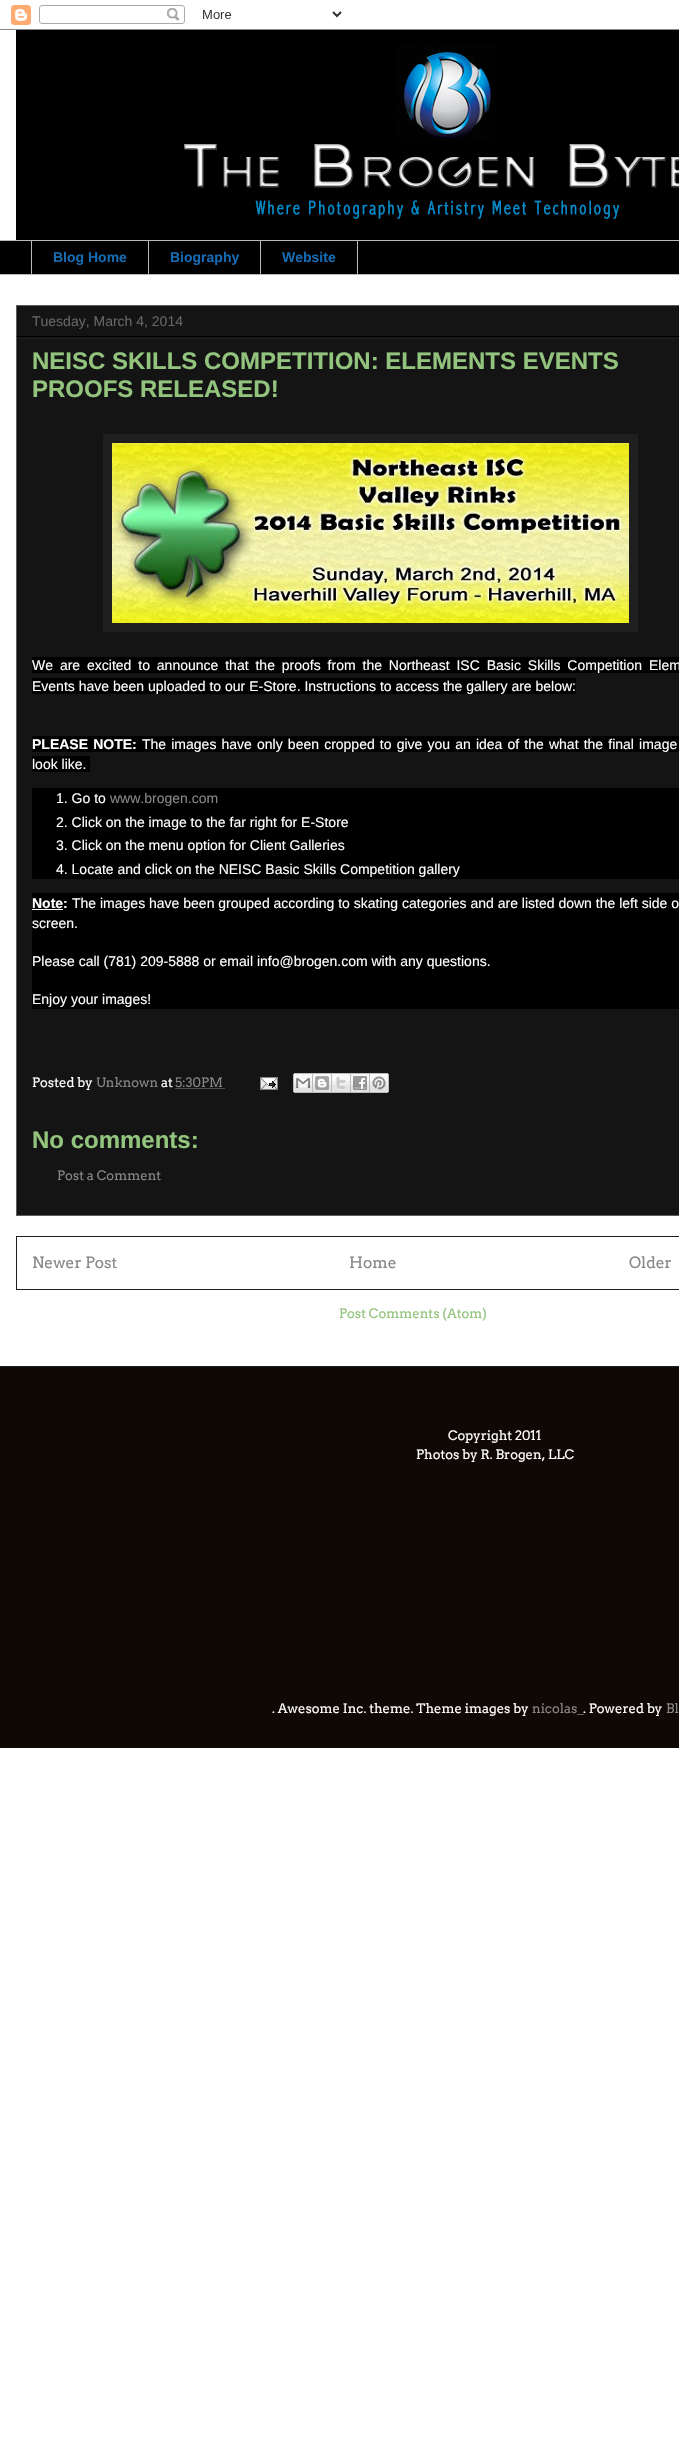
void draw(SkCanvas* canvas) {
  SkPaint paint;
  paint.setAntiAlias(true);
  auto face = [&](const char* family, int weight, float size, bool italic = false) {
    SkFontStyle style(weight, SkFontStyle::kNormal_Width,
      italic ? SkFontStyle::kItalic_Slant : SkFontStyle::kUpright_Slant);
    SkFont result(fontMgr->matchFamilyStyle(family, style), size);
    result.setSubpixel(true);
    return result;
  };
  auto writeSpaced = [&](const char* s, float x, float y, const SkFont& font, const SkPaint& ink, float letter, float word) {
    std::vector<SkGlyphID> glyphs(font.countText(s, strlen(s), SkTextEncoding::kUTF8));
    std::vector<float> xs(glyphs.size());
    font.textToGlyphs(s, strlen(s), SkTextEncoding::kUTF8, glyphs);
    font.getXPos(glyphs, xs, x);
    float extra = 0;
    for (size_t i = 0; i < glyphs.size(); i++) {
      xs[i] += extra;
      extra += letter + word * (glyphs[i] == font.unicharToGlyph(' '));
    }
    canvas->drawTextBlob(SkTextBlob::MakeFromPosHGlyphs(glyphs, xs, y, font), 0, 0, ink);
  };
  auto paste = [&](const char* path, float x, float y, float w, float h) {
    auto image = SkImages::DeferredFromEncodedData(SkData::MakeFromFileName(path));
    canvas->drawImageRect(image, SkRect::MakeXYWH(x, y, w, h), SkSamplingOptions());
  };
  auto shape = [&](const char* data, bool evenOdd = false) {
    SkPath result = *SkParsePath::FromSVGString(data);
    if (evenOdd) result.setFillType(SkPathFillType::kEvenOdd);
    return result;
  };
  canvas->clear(0xffffffff);
  paste("img/1.png", 0, 5, 679, 25);
  paste("img/2.png", 16, 30, 663, 210);
  {
    const struct { float x, y, w, h; SkColor color; } items[] = {
      {0, 241, 679, 33, 0xff000000},
      {0, 240, 679, 1, 0xffbababa},
      {31, 240, 1, 35, 0xffbababa},
      {148, 240, 1, 35, 0xffbababa},
    };
    for (auto [x, y, w, h, color] : items) {
      paint.setColor(color);
      canvas->drawRect(SkRect::MakeXYWH(x, y, w, h), paint);
    }
  }
  paint.setStroke(true);
  paint.setStrokeWidth(1);
  canvas->drawRect(SkRect::MakeXYWH(260.5f, 240.5f, 97, 34), paint);
  paint.setStroke(false);
  canvas->drawRect(SkRect::MakeXYWH(0, 274, 679, 1), paint);
  paint.setColor(0xff141415);
  canvas->drawRect(SkRect::MakeXYWH(16.5f, 305.5f, 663, 910), paint);
  paint.setStroke(true);
  paint.setColor(0xff5c5c5c);
  canvas->drawRect(SkRect::MakeXYWH(16.5f, 305.5f, 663, 910), paint);
  paint.setStroke(false);
  {
    const struct { float x, y, w, h; SkColor color; } items[] = {
      {17, 336, 662, 1, 0xff000000},
      {17, 338, 662, 1, 0xff1f1f1f},
      {103, 434, 535, 198, 0xff1f1f1f},
    };
    for (auto [x, y, w, h, color] : items) {
      paint.setColor(color);
      canvas->drawRect(SkRect::MakeXYWH(x, y, w, h), paint);
    }
  }
  paste("img/3.png", 112, 443, 517, 180);
  {
    const struct { float x, y, w, h; SkColor color; } items[] = {
      {32, 657, 647, 16, 0xff000000},
      {32, 678, 544, 16, 0xff000000},
      {32, 736, 647, 16, 0xff000000},
      {32, 756, 58, 16, 0xff000000},
      {32, 788, 647, 91, 0xff000000},
      {32, 893, 647, 116, 0xff000000},
      {32, 909, 31, 1, 0xffffffff},
    };
    for (auto [x, y, w, h, color] : items) {
      paint.setColor(color);
      canvas->drawRect(SkRect::MakeXYWH(x, y, w, h), paint);
    }
  }
  paint.setStroke(true);
  paint.setColor(0xff878787);
  paint.setPathEffect(SkDashPathEffect::Make({{1, 1}}, 0));
  canvas->drawPath(shape("M175.5 1088.5H225"), paint);
  paint.setPathEffect(nullptr);
  paste("img/4.png", 260, 1077, 18, 13);
  paste("img/5.png", 293, 1073, 20, 20);
  paste("img/6.png", 313, 1073, 19, 20);
  paste("img/7.png", 332, 1073, 19, 20);
  paste("img/8.png", 351, 1073, 19, 20);
  paste("img/9.png", 370, 1073, 19, 20);
  paint.setColor(0xff1f1f1f);
  canvas->drawRect(SkRect::MakeXYWH(16.5f, 1236.5f, 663, 53), paint);
  paint.setStroke(false);
  paint.setColor(0xff100805);
  canvas->drawRect(SkRect::MakeXYWH(0, 1367, 679, 381), paint);
  paint.setColor(0xff1f1f1f);
  canvas->drawRect(SkRect::MakeXYWH(0, 1366, 679, 1), paint);
  auto f0 = face("Liberation Sans", 700, 14);
  paint.setColor(0xff166bb2);
  {
    const struct { const char* s; float x, y; } items[] = {
      {"Blog Home", 53, 262},
      {"Biography", 170, 262},
      {"Website", 282, 262},
    };
    for (auto [s, x, y] : items) {
      canvas->drawString(s, x, y, f0, paint);
    }
  }
  auto f1 = face("Liberation Sans", 400, 14);
  paint.setColor(0xff656565);
  canvas->drawString("Tuesday, March 4, 2014", 32, 326, f1, paint);
  auto f2 = face("Liberation Sans", 700, 24);
  paint.setColor(0xff93c47d);
  canvas->drawString("NEISC SKILLS COMPETITION: ELEMENTS EVENTS", 32, 369, f2, paint);
  canvas->drawString("PROOFS RELEASED!", 32, 397, f2, paint);
  paint.setColor(0xffffffff);
  writeSpaced("We are excited to announce that the proofs from the Northeast ISC Basic Skills Competition Elem", 32, 670, f1, paint, 0, 3);
  canvas->drawString("Events have been uploaded to our E-Store. Instructions to access the gallery are below:", 32, 691, f1, paint);
  writeSpaced("PLEASE NOTE:", 32, 749, f0, paint, 0, 1.25f);
  writeSpaced("The images have only been cropped to give you an idea of the what the final image", 142, 749, f1, paint, 0, 1.25f);
  canvas->drawString("look like.", 32, 769, f1, paint);
  canvas->drawString("1. Go to", 56, 803, f1, paint);
  paint.setColor(0xff878787);
  canvas->drawString("www.brogen.com", 110, 803, f1, paint);
  paint.setColor(0xffffffff);
  {
    const struct { const char* s; float x, y; } items[] = {
      {"2. Click on the image to the far right for E-Store", 56, 827},
      {"3. Click on the menu option for Client Galleries", 56, 850},
      {"4. Locate and click on the NEISC Basic Skills Competition gallery", 56, 874},
    };
    for (auto [s, x, y] : items) {
      canvas->drawString(s, x, y, f1, paint);
    }
  }
  canvas->drawString("Note:", 32, 908, f0, paint);
  {
    const struct { const char* s; float x, y; } items[] = {
      {"The images have been grouped according to skating categories and are listed down the left side o", 72, 908},
      {"screen.", 32, 928},
      {"Please call (781) 209-5888 or email info@brogen.com with any questions.", 32, 966},
      {"Enjoy your images!", 32, 1004},
    };
    for (auto [s, x, y] : items) {
      canvas->drawString(s, x, y, f1, paint);
    }
  }
  auto f3 = face("Arvo", 400, 13);
  canvas->drawString("Posted by", 32, 1087, f3, paint);
  paint.setColor(0xff878787);
  canvas->drawString("Unknown", 96, 1087, f3, paint);
  paint.setColor(0xffffffff);
  canvas->drawString("at", 161, 1087, f3, paint);
  paint.setColor(0xff878787);
  canvas->drawString("5:30 PM", 175, 1087, f3, paint);
  paint.setColor(0xff93c47d);
  canvas->drawString("No comments:", 32, 1148, f2, paint);
  paint.setColor(0xff878787);
  canvas->drawString("Post a Comment", 57, 1180, f3, paint);
  auto f4 = face("Arvo", 400, 15.5f);
  {
    const struct { const char* s; float x, y; } items[] = {
      {"Newer Post", 32, 1268},
      {"Home", 349, 1268},
      {"Older", 629, 1268},
    };
    for (auto [s, x, y] : items) {
      canvas->drawString(s, x, y, f4, paint);
    }
  }
  paint.setColor(0xff93c47d);
  canvas->drawString("Post Comments (Atom)", 339, 1318, f3, paint);
  paint.setColor(0xffffffff);
  {
    const struct { const char* s; float x, y; } items[] = {
      {"Copyright 2011", 448, 1440},
      {"Photos by R. Brogen, LLC", 416, 1459},
      {". Awesome Inc. theme. Theme images by", 272, 1713},
    };
    for (auto [s, x, y] : items) {
      canvas->drawString(s, x, y, f3, paint);
    }
  }
  paint.setColor(0xff878787);
  canvas->drawString("nicolas_", 532, 1713, f3, paint);
  paint.setColor(0xffffffff);
  canvas->drawString(". Powered by", 583, 1713, f3, paint);
  paint.setColor(0xff878787);
  canvas->drawString("Bl", 666, 1713, f3, paint);
}
